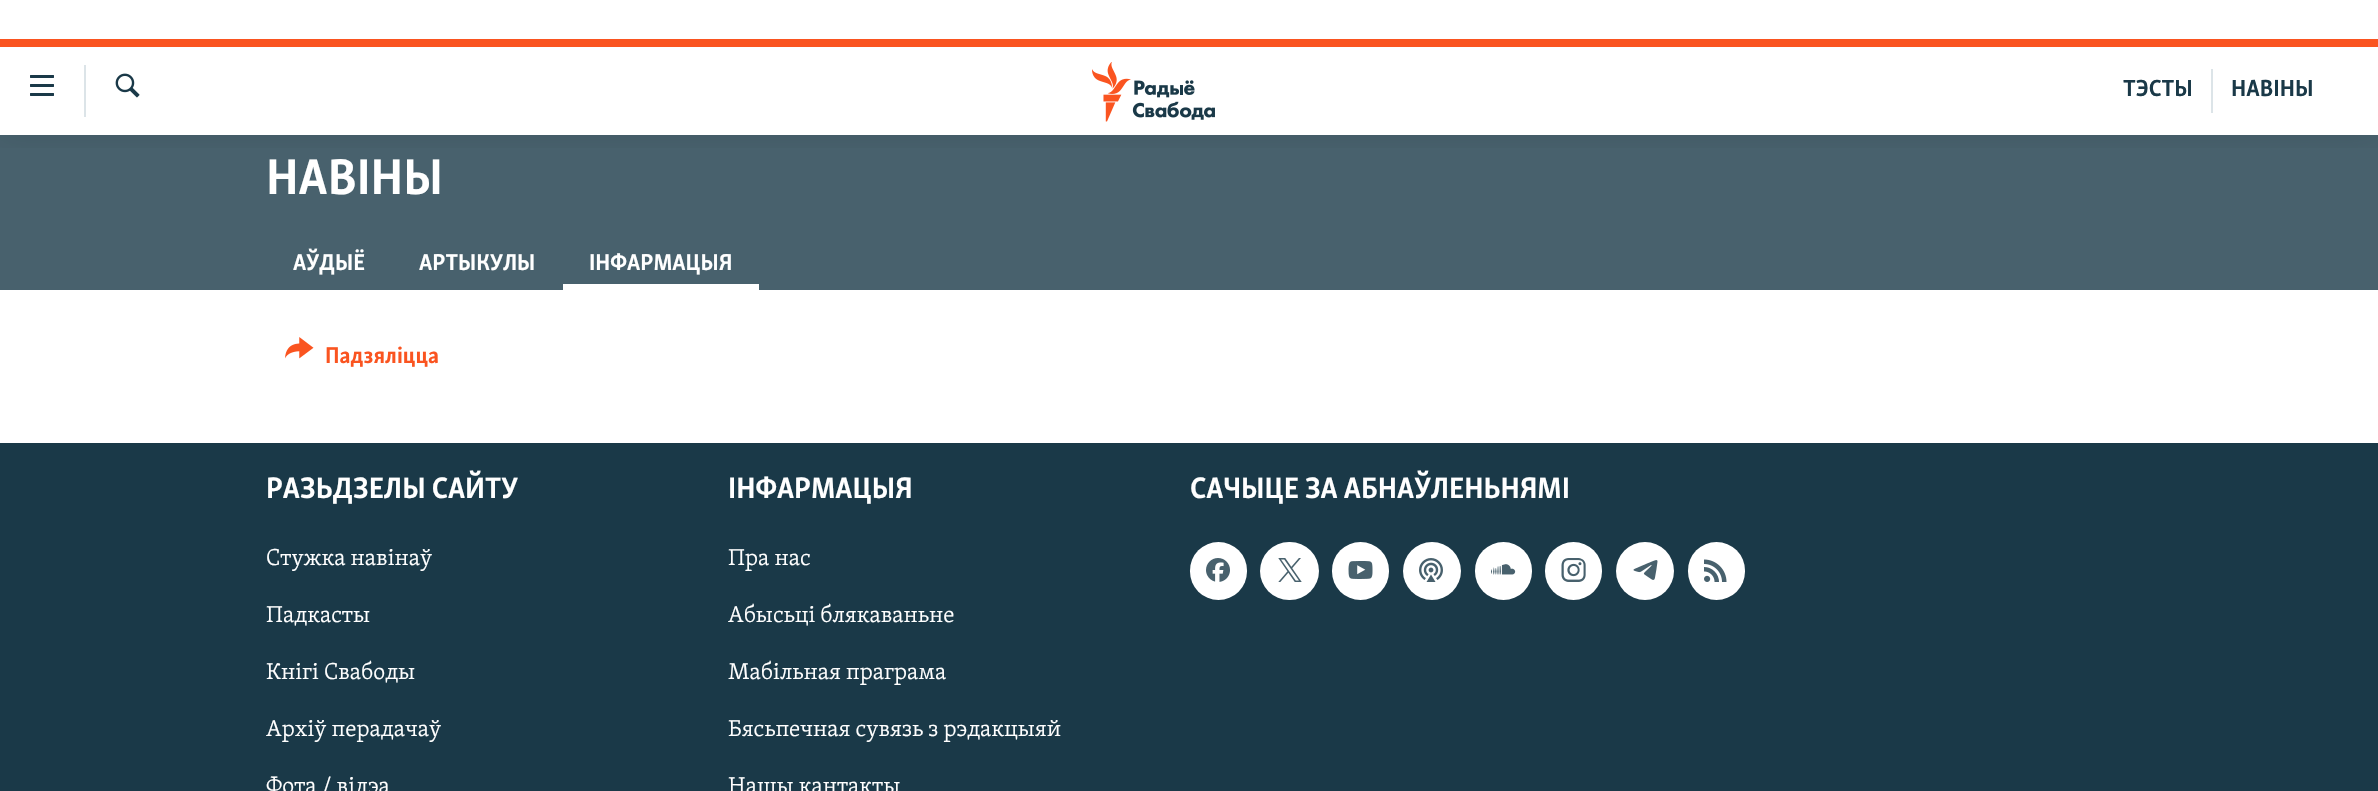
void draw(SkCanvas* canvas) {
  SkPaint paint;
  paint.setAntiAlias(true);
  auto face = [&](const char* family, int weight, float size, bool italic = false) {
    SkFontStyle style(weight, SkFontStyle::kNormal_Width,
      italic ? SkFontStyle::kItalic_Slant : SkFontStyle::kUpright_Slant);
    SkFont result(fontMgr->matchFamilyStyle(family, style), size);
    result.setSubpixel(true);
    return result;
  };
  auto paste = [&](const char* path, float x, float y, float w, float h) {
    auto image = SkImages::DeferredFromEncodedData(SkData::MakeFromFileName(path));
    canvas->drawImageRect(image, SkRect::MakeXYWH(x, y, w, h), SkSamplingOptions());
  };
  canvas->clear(0xffffffff);
  paint.setColor(0xff48616d);
  canvas->drawRect(SkRect::MakeXYWH(0, 135, 2378, 155), paint);
  canvas->save();
  canvas->clipRect(SkRect::MakeXYWH(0, 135, 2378, 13));
  paint.setColor(0x1a000000);
  paint.setMaskFilter(SkMaskFilter::MakeBlur(kNormal_SkBlurStyle, 15));
  canvas->drawRect(SkRect::MakeXYWH(0, 39, 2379, 96), paint);
  paint.setMaskFilter(nullptr);
  canvas->restore();
  paint.setColor(0xffffffff);
  canvas->drawRect(SkRect::MakeXYWH(0, 20, 2378, 19), paint);
  paint.setColor(0xfffa5420);
  canvas->drawRect(SkRect::MakeXYWH(0, 39, 2378, 8), paint);
  paste("img/1.png", 30, 75, 24, 21);
  paint.setColor(0xffdce4e8);
  canvas->drawRect(SkRect::MakeXYWH(84, 65, 2, 52), paint);
  paste("img/2.png", 115, 73, 25, 25);
  paste("img/3.png", 1092, 62, 123, 60);
  canvas->drawRect(SkRect::MakeXYWH(2211, 69, 2, 44), paint);
  paint.setColor(0xffffffff);
  canvas->drawRect(SkRect::MakeXYWH(563, 284, 196, 6), paint);
  paste("img/4.png", 285, 337, 29, 22);
  paint.setColor(0xff1a3948);
  canvas->drawRect(SkRect::MakeXYWH(0, 443, 2378, 348), paint);
  paint.setColor(0xffffffff);
  canvas->drawRoundRect(SkRect::MakeXYWH(1190, 542, 57, 58), 28.5f, 28.5f, paint);
  paste("img/5.png", 1206, 558, 24, 24);
  canvas->drawRoundRect(SkRect::MakeXYWH(1260, 542, 59, 58), 29, 29, paint);
  paste("img/6.png", 1278, 558, 24, 24);
  canvas->drawRoundRect(SkRect::MakeXYWH(1332, 542, 57, 58), 28.5f, 28.5f, paint);
  paste("img/7.png", 1348, 561, 25, 18);
  canvas->drawCircle(1432, 571, 29, paint);
  paste("img/8.png", 1419, 558, 24, 24);
  canvas->drawRoundRect(SkRect::MakeXYWH(1475, 542, 57, 58), 28.5f, 28.5f, paint);
  paste("img/9.png", 1491, 564, 25, 11);
  canvas->drawRoundRect(SkRect::MakeXYWH(1545, 542, 57, 58), 28.5f, 28.5f, paint);
  paste("img/10.png", 1561, 558, 25, 24);
  canvas->drawCircle(1645, 571, 29, paint);
  paste("img/11.png", 1633, 560, 25, 20);
  canvas->drawRoundRect(SkRect::MakeXYWH(1688, 542, 57, 58), 28.5f, 28.5f, paint);
  paste("img/12.png", 1704, 559, 23, 23);
  auto f0 = face("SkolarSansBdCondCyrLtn", 700, 24);
  paint.setColor(0xff1a3948);
  canvas->drawString("ТЭСТЫ", 2123, 96, f0, paint);
  canvas->drawString("НАВІНЫ", 2231, 96, f0, paint);
  auto f1 = face("SkolarSansBdCondCyrLtn", 700, 51.5f);
  paint.setColor(0xffffffff);
  canvas->drawString("НАВІНЫ", 266, 194, f1, paint);
  auto f2 = face("SkolarSansBdCondCyrLtn", 700, 23.6f);
  {
    const struct { const char* s; float x, y; } items[] = {
      {"АЎДЫЁ", 293, 270},
      {"АРТЫКУЛЫ", 419, 270},
      {"ІНФАРМАЦЫЯ", 589, 270},
    };
    for (auto [s, x, y] : items) {
      canvas->drawString(s, x, y, f2, paint);
    }
  }
  paint.setColor(0xfffa5420);
  canvas->drawString("Падзяліцца", 325, 363, f2, paint);
  auto f3 = face("SkolarSansBdCondCyrLtn", 700, 30.4f);
  paint.setColor(0xffffffff);
  canvas->drawString("РАЗЬДЗЕЛЫ САЙТУ", 266, 498, f3, paint);
  auto f4 = face("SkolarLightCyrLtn", 300, 23.6f);
  {
    const struct { const char* s; float x, y; } items[] = {
      {"Стужка навінаў", 266, 565},
      {"Падкасты", 266, 622},
      {"Кнігі Свабоды", 266, 679},
      {"Архіў перадачаў", 266, 736},
      {"Фота / відэа", 266, 793},
    };
    for (auto [s, x, y] : items) {
      canvas->drawString(s, x, y, f4, paint);
    }
  }
  canvas->drawString("ІНФАРМАЦЫЯ", 728, 498, f3, paint);
  {
    const struct { const char* s; float x, y; } items[] = {
      {"Пра нас", 728, 565},
      {"Абысьці блякаваньне", 728, 622},
      {"Мабільная праграма", 728, 679},
      {"Бясьпечная сувязь з рэдакцыяй", 728, 736},
      {"Нашы кантакты", 728, 793},
    };
    for (auto [s, x, y] : items) {
      canvas->drawString(s, x, y, f4, paint);
    }
  }
  canvas->drawString("САЧЫЦЕ ЗА АБНАЎЛЕНЬНЯМІ", 1190, 498, f3, paint);
}
